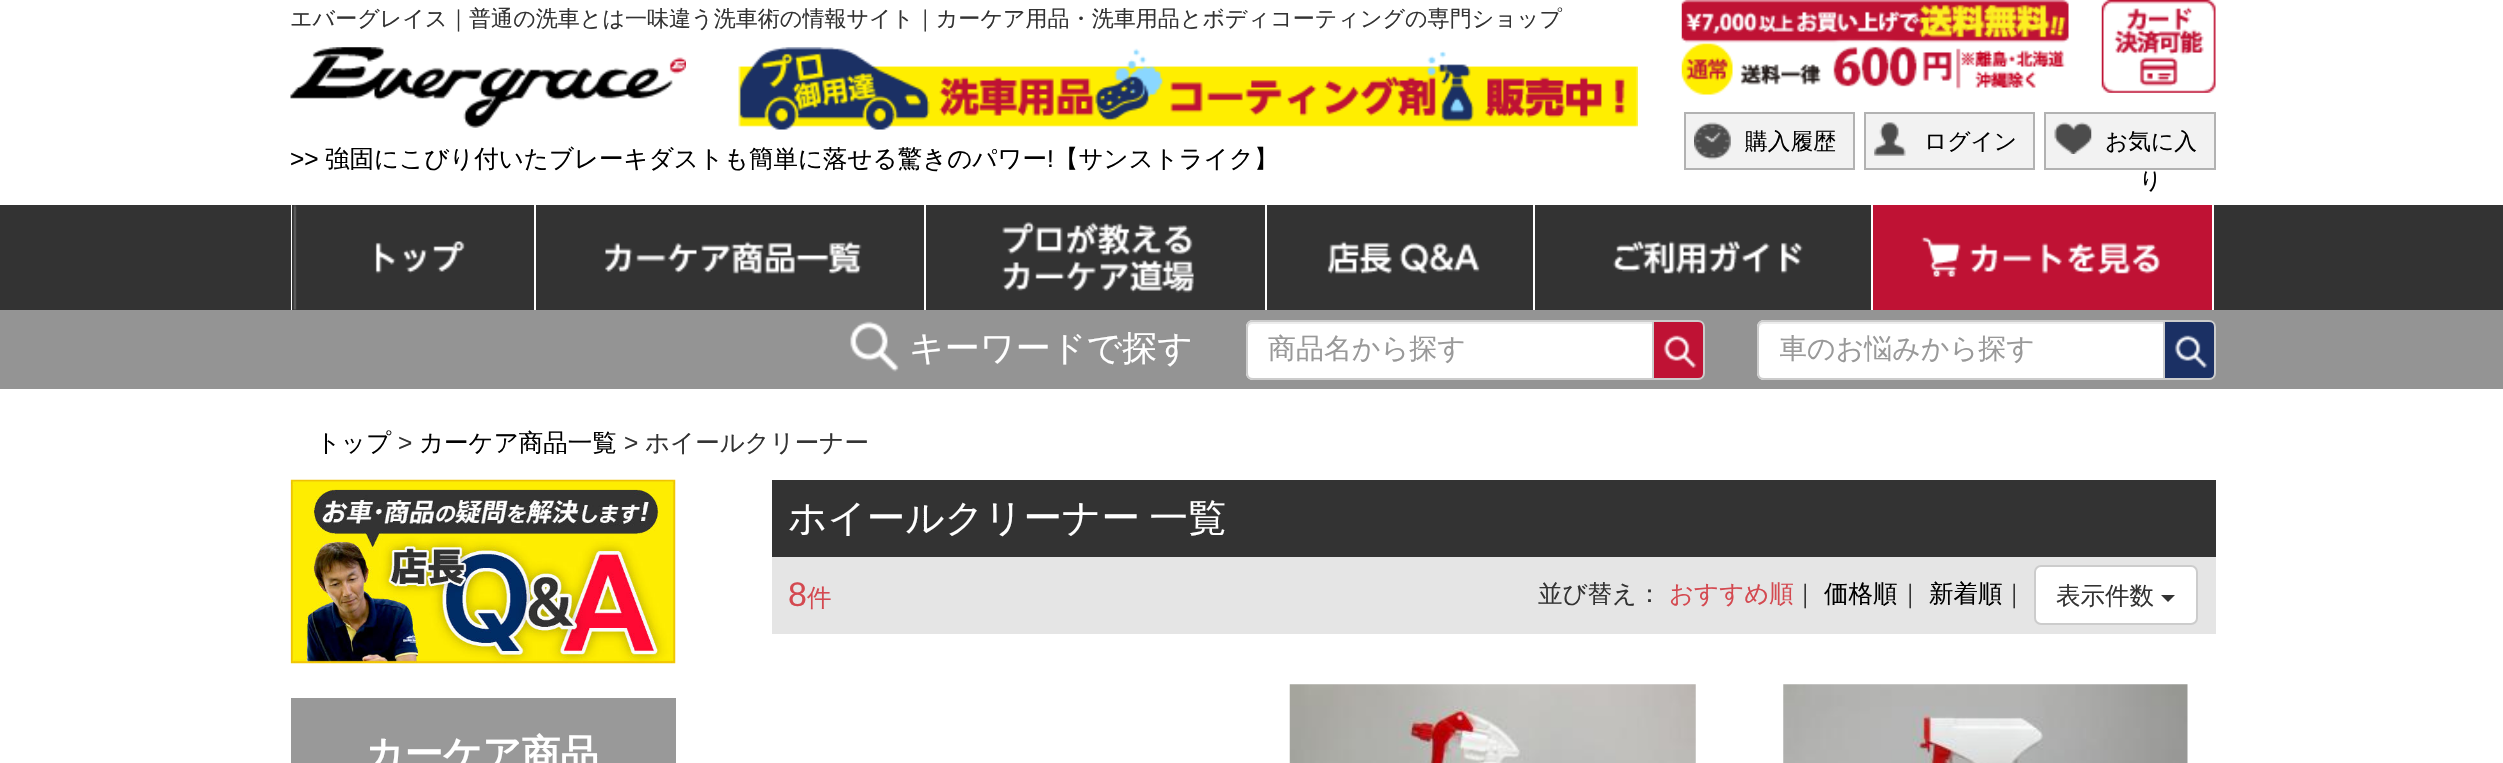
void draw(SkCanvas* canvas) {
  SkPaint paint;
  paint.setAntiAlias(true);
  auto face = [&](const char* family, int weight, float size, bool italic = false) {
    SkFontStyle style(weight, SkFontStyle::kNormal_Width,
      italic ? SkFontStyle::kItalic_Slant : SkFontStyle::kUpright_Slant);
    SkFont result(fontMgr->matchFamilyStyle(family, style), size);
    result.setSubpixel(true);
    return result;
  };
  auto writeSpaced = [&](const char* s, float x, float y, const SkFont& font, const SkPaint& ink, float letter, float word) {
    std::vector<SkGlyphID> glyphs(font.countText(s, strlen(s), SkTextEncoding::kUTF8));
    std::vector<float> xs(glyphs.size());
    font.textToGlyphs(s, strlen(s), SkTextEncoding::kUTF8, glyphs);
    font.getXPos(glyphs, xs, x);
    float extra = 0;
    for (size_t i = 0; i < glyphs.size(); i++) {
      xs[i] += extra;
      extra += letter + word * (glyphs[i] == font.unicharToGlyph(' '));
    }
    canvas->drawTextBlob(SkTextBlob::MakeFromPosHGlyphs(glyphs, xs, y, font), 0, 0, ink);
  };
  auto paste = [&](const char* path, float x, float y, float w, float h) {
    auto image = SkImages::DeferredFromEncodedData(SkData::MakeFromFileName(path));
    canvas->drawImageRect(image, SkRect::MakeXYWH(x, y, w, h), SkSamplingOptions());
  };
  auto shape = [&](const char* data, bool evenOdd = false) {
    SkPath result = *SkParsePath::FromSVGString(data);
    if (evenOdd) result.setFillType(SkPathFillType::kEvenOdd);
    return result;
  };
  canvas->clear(0xffffffff);
  paste("img/1.png", 290, 47, 396, 81);
  paste("img/2.png", 738, 47, 900, 83);
  paste("img/3.png", 1681, 0, 388, 95);
  paste("img/4.png", 2101, 0, 115, 93);
  paint.setColor(0xfff2f2f2);
  canvas->drawRect(SkRect::MakeXYWH(1685, 113, 169, 56), paint);
  paint.setStroke(true);
  paint.setStrokeWidth(2);
  paint.setColor(0xffb2b2b2);
  canvas->drawRect(SkRect::MakeXYWH(1685, 113, 169, 56), paint);
  paste("img/5.png", 1694, 122, 37, 38);
  paint.setStroke(false);
  paint.setColor(0xfff2f2f2);
  canvas->drawRect(SkRect::MakeXYWH(1865, 113, 169, 56), paint);
  paint.setStroke(true);
  paint.setColor(0xffb2b2b2);
  canvas->drawRect(SkRect::MakeXYWH(1865, 113, 169, 56), paint);
  paste("img/6.png", 1874, 122, 32, 34);
  paint.setStroke(false);
  paint.setColor(0xfff2f2f2);
  canvas->drawRect(SkRect::MakeXYWH(2045, 113, 170, 56), paint);
  paint.setStroke(true);
  paint.setColor(0xffb2b2b2);
  canvas->drawRect(SkRect::MakeXYWH(2045, 113, 170, 56), paint);
  paste("img/7.png", 2054, 122, 38, 32);
  paint.setStroke(false);
  {
    const struct { float x, y, w, h; SkColor color; } items[] = {
      {0, 205, 2503, 105, 0xff333333},
      {534, 205, 2, 105, 0xffffffff},
      {291, 205, 1, 105, 0xffffffff},
    };
    for (auto [x, y, w, h, color] : items) {
      paint.setColor(color);
      canvas->drawRect(SkRect::MakeXYWH(x, y, w, h), paint);
    }
  }
  paste("img/8.png", 293, 205, 172, 105);
  canvas->drawRect(SkRect::MakeXYWH(924, 205, 2, 105), paint);
  paste("img/9.png", 605, 241, 257, 33);
  canvas->drawRect(SkRect::MakeXYWH(1265, 205, 2, 105), paint);
  paste("img/10.png", 1002, 221, 192, 72);
  canvas->drawRect(SkRect::MakeXYWH(1533, 205, 2, 105), paint);
  paste("img/11.png", 1327, 241, 153, 33);
  canvas->drawRect(SkRect::MakeXYWH(1871, 205, 2, 105), paint);
  paste("img/12.png", 1613, 241, 190, 33);
  paint.setColor(0xffbf1234);
  canvas->drawRect(SkRect::MakeXYWH(1873, 205, 339, 105), paint);
  paint.setColor(0xffffffff);
  canvas->drawRect(SkRect::MakeXYWH(2212, 205, 2, 105), paint);
  paste("img/13.png", 1921, 237, 239, 40);
  paint.setColor(0xff949494);
  canvas->drawRect(SkRect::MakeXYWH(0, 310, 2503, 79), paint);
  paste("img/14.png", 850, 321, 49, 51);
  paint.setColor(0xffffffff);
  canvas->drawPath(shape("M1253 320H1654V380H1253C1249 380 1246 377 1246 373V327C1246 323 1249 320 1253 320Z"), paint);
  paint.setColor(0xffececec);
  canvas->drawPath(shape("M1253 324H1652V322H1253C1250 322 1248 324 1248 327V329C1248 326 1250 324 1253 324Z"), paint);
  paint.setStroke(true);
  paint.setColor(0xffcccccc);
  canvas->drawPath(shape("M1253 321H1653V379H1253C1249.5 379 1247 376.5 1247 373V327C1247 323.5 1249.5 321 1253 321Z"), paint);
  paint.setStroke(false);
  paint.setColor(0xffbf1234);
  canvas->drawPath(shape("M1653 321H1698C1701.5 321 1704 323.5 1704 327V373C1704 376.5 1701.5 379 1698 379H1653Z"), paint);
  paint.setStroke(true);
  paint.setColor(0xffcccccc);
  canvas->drawPath(shape("M1653 321H1698C1701.5 321 1704 323.5 1704 327V373C1704 376.5 1701.5 379 1698 379H1653Z"), paint);
  paste("img/15.png", 1663, 335, 34, 33);
  paint.setStroke(false);
  paint.setColor(0xffffffff);
  canvas->drawPath(shape("M1764 320H2165V380H1764C1760 380 1757 377 1757 373V327C1757 323 1760 320 1764 320Z"), paint);
  paint.setColor(0xffececec);
  canvas->drawPath(shape("M1764 324H2163V322H1764C1761 322 1759 324 1759 327V329C1759 326 1761 324 1764 324Z"), paint);
  paint.setStroke(true);
  paint.setColor(0xffcccccc);
  canvas->drawPath(shape("M1764 321H2164V379H1764C1760.5 379 1758 376.5 1758 373V327C1758 323.5 1760.5 321 1764 321Z"), paint);
  paint.setStroke(false);
  paint.setColor(0xff1b3064);
  canvas->drawPath(shape("M2164 321H2209C2212.5 321 2215 323.5 2215 327V373C2215 376.5 2212.5 379 2209 379H2164Z"), paint);
  paint.setStroke(true);
  paint.setColor(0xffcccccc);
  canvas->drawPath(shape("M2164 321H2209C2212.5 321 2215 323.5 2215 327V373C2215 376.5 2212.5 379 2209 379H2164Z"), paint);
  paste("img/16.png", 2174, 335, 34, 33);
  paint.setStroke(false);
  paint.setColor(0xff333333);
  canvas->drawRect(SkRect::MakeXYWH(772, 480, 1444, 77), paint);
  paint.setColor(0xffe5e5e5);
  canvas->drawRect(SkRect::MakeXYWH(772, 557, 1444, 77), paint);
  paint.setColor(0xffffffff);
  canvas->drawRoundRect(SkRect::MakeXYWH(2035, 566, 162, 58), 6, 6, paint);
  paint.setStroke(true);
  paint.setColor(0xffcccccc);
  canvas->drawRoundRect(SkRect::MakeXYWH(2035, 566, 162, 58), 6, 6, paint);
  paint.setStroke(false);
  paint.setColor(0xff333333);
  canvas->drawPath(shape("M2161 595H2175L2168 602Z"), paint);
  paste("img/17.png", 1289, 684, 407, 79);
  paste("img/18.png", 1783, 684, 405, 79);
  paste("img/19.png", 290, 479, 386, 185);
  paint.setColor(0xff999999);
  canvas->drawRect(SkRect::MakeXYWH(291, 698, 385, 65), paint);
  auto f0 = face("WenQuanYi Zen Hei", 500, 22.05f);
  paint.setColor(0xff333333);
  canvas->drawString("エバーグレイス｜普通の洗車とは一味違う洗車術の情報サイト｜カーケア用品・洗車用品とボディコーティングの専門ショップ", 290, 26, f0, paint);
  auto f1 = face("Liberation Sans", 400, 24.5f);
  paint.setColor(0xff000000);
  canvas->drawString(">>", 290, 167, f1, paint);
  auto f2 = face("WenQuanYi Zen Hei", 500, 24.5f);
  canvas->drawString("強固にこびり付いたブレーキダストも簡単に落せる驚きのパワー", 325, 167, f2, paint);
  canvas->drawString("!", 1047, 167, f1, paint);
  canvas->drawString("【サンストライク】", 1054, 167, f2, paint);
  auto f3 = face("WenQuanYi Zen Hei", 500, 22.75f);
  {
    const struct { const char* s; float x, y; } items[] = {
      {"購入履歴", 1745, 149},
      {"ログイン", 1924, 149},
      {"お気に入", 2105, 149},
      {"り", 2139, 188},
    };
    for (auto [s, x, y] : items) {
      canvas->drawString(s, x, y, f3, paint);
    }
  }
  auto f4 = face("WenQuanYi Zen Hei", 500, 35);
  paint.setColor(0xffffffff);
  canvas->drawString("キーワードで探す", 909, 360, f4, paint);
  auto f5 = face("WenQuanYi Zen Hei", 500, 28);
  paint.setColor(0xff999999);
  canvas->drawString("商品名から探す", 1268, 358, f5, paint);
  canvas->save();
  canvas->clipRect(SkRect::MakeXYWH(1780, 333, 362, 36));
  canvas->drawString("車のお悩みから探す", 1779, 358, f5, paint);
  canvas->restore();
  paint.setColor(0xff000000);
  canvas->drawString("トップ", 316, 451, f2, paint);
  paint.setColor(0xff333333);
  canvas->drawString(">", 398, 451, f1, paint);
  paint.setColor(0xff000000);
  canvas->drawString("カーケア商品一覧", 419, 451, f2, paint);
  paint.setColor(0xff333333);
  canvas->drawString(">", 624, 451, f1, paint);
  canvas->drawString("ホイールクリーナー", 645, 451, f2, paint);
  auto f6 = face("WenQuanYi Zen Hei", 500, 38.5f);
  paint.setColor(0xffffffff);
  writeSpaced("ホイールクリーナー 一覧", 788, 531, f6, paint, 0, -2);
  auto f7 = face("Liberation Sans", 400, 34);
  paint.setColor(0xffd44950);
  canvas->drawString("8", 788, 606, f7, paint);
  canvas->drawString("件", 807, 606, f2, paint);
  paint.setColor(0xff333333);
  canvas->drawString("並び替え：", 1538, 602, f2, paint);
  paint.setColor(0xffd44950);
  canvas->drawString("おすすめ順", 1669, 602, f2, paint);
  paint.setColor(0xff333333);
  canvas->drawString("｜", 1793, 602, f2, paint);
  paint.setColor(0xff000000);
  canvas->drawString("価格順", 1824, 602, f2, paint);
  paint.setColor(0xff333333);
  canvas->drawString("｜", 1898, 602, f2, paint);
  paint.setColor(0xff000000);
  canvas->drawString("新着順", 1929, 602, f2, paint);
  paint.setColor(0xff333333);
  canvas->drawString("｜", 2002, 602, f2, paint);
  canvas->drawString("表示件数", 2056, 604, f2, paint);
  auto f8 = face("WenQuanYi Zen Hei", 700, 38.5f);
  paint.setColor(0xffffffff);
  canvas->drawString("カーケア商品", 365, 767, f8, paint);
}
